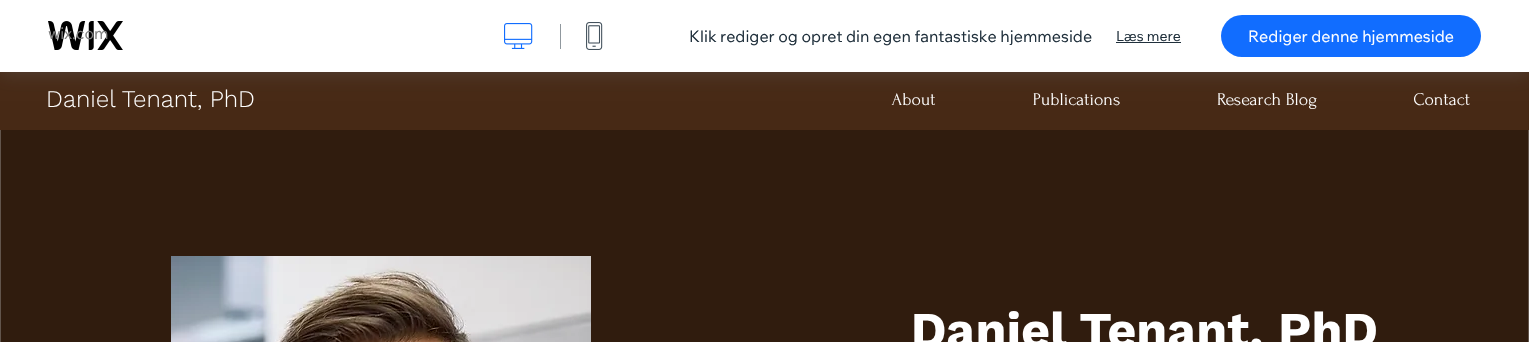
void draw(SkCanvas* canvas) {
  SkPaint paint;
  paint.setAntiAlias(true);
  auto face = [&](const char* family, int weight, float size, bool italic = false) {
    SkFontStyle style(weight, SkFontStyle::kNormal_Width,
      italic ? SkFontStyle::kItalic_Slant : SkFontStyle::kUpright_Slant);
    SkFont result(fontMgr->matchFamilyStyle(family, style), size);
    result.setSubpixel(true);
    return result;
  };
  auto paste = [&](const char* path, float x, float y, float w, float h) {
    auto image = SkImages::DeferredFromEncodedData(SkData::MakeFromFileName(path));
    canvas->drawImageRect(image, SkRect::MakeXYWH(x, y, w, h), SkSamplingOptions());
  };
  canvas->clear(0xffffffff);
  paste("img/4.png", 0, 72, 1529, 270);
  paint.setColor(0x3381a2b6);
  paint.setMaskFilter(SkMaskFilter::MakeBlur(kNormal_SkBlurStyle, 9));
  canvas->drawRect(SkRect::MakeXYWH(0, 2, 1529, 72), paint);
  paint.setMaskFilter(nullptr);
  paint.setColor(0xffffffff);
  canvas->drawRect(SkRect::MakeXYWH(0, 0, 1529, 72), paint);
  paste("img/1.png", 48, 21, 75, 29);
  paste("img/2.png", 504, 23, 29, 26);
  paint.setColor(0xff90989e);
  canvas->drawRect(SkRect::MakeXYWH(560, 24, 1, 25), paint);
  paste("img/3.png", 586, 22, 17, 28);
  paint.setColor(0xff20303c);
  canvas->drawRect(SkRect::MakeXYWH(1116, 42, 65, 1), paint);
  paint.setColor(0xff116dff);
  canvas->drawRoundRect(SkRect::MakeXYWH(1221, 15, 260, 42), 21, 21, paint);
  auto f0 = face("Wix Madefor Text", 400, 16);
  paint.setColor(0xff808080);
  canvas->drawString("wix.com", 48, 39, f0, paint);
  paint.setColor(0xff20303c);
  canvas->drawString("Klik rediger og opret din egen fantastiske hjemmeside", 689, 42, f0, paint);
  auto f1 = face("Wix Madefor Text", 400, 14);
  canvas->drawString("Læs mere", 1116, 41, f1, paint);
  paint.setColor(0xffffffff);
  canvas->drawString("Rediger denne hjemmeside", 1248, 42, f0, paint);
}
